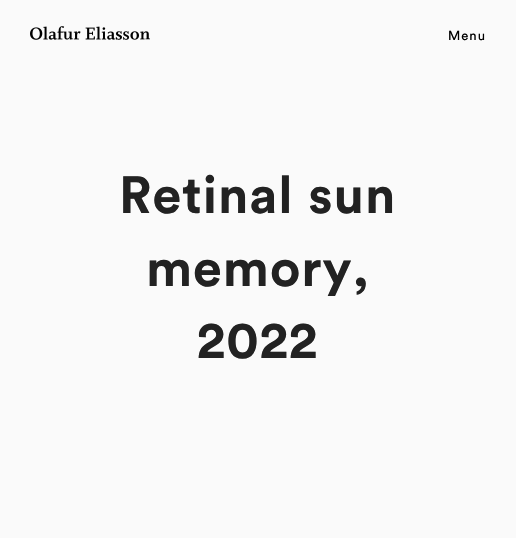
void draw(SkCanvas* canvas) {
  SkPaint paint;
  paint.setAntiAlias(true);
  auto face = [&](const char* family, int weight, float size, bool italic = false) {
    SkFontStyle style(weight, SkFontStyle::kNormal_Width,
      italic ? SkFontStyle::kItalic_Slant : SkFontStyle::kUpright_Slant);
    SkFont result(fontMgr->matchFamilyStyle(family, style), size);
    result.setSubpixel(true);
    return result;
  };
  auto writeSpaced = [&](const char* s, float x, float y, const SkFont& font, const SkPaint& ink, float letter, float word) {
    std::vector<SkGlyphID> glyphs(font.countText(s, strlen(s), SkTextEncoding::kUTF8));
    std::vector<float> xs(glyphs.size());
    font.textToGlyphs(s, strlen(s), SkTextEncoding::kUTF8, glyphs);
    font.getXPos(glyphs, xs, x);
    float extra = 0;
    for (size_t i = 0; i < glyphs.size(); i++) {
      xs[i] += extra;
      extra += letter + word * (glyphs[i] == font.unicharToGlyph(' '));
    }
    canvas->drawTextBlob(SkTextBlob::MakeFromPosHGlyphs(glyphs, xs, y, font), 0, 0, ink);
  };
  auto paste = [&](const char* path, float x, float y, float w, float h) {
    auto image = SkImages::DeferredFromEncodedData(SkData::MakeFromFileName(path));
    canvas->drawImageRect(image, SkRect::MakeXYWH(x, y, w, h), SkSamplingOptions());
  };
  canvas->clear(0xfffafafa);
  paste("img/1.png", 30, 26, 120, 14);
  auto f0 = face("Circular", 400, 13);
  paint.setColor(0xff000000);
  writeSpaced("Menu", 448, 40, f0, paint, 1, 0);
  auto f1 = face("Circular", 700, 52);
  paint.setColor(0xff222222);
  writeSpaced("Retinal sun", 119, 213, f1, paint, 1, 1);
  writeSpaced("memory,", 146, 286, f1, paint, 1, 0);
  writeSpaced("2022", 197, 358, f1, paint, 1, 0);
}
